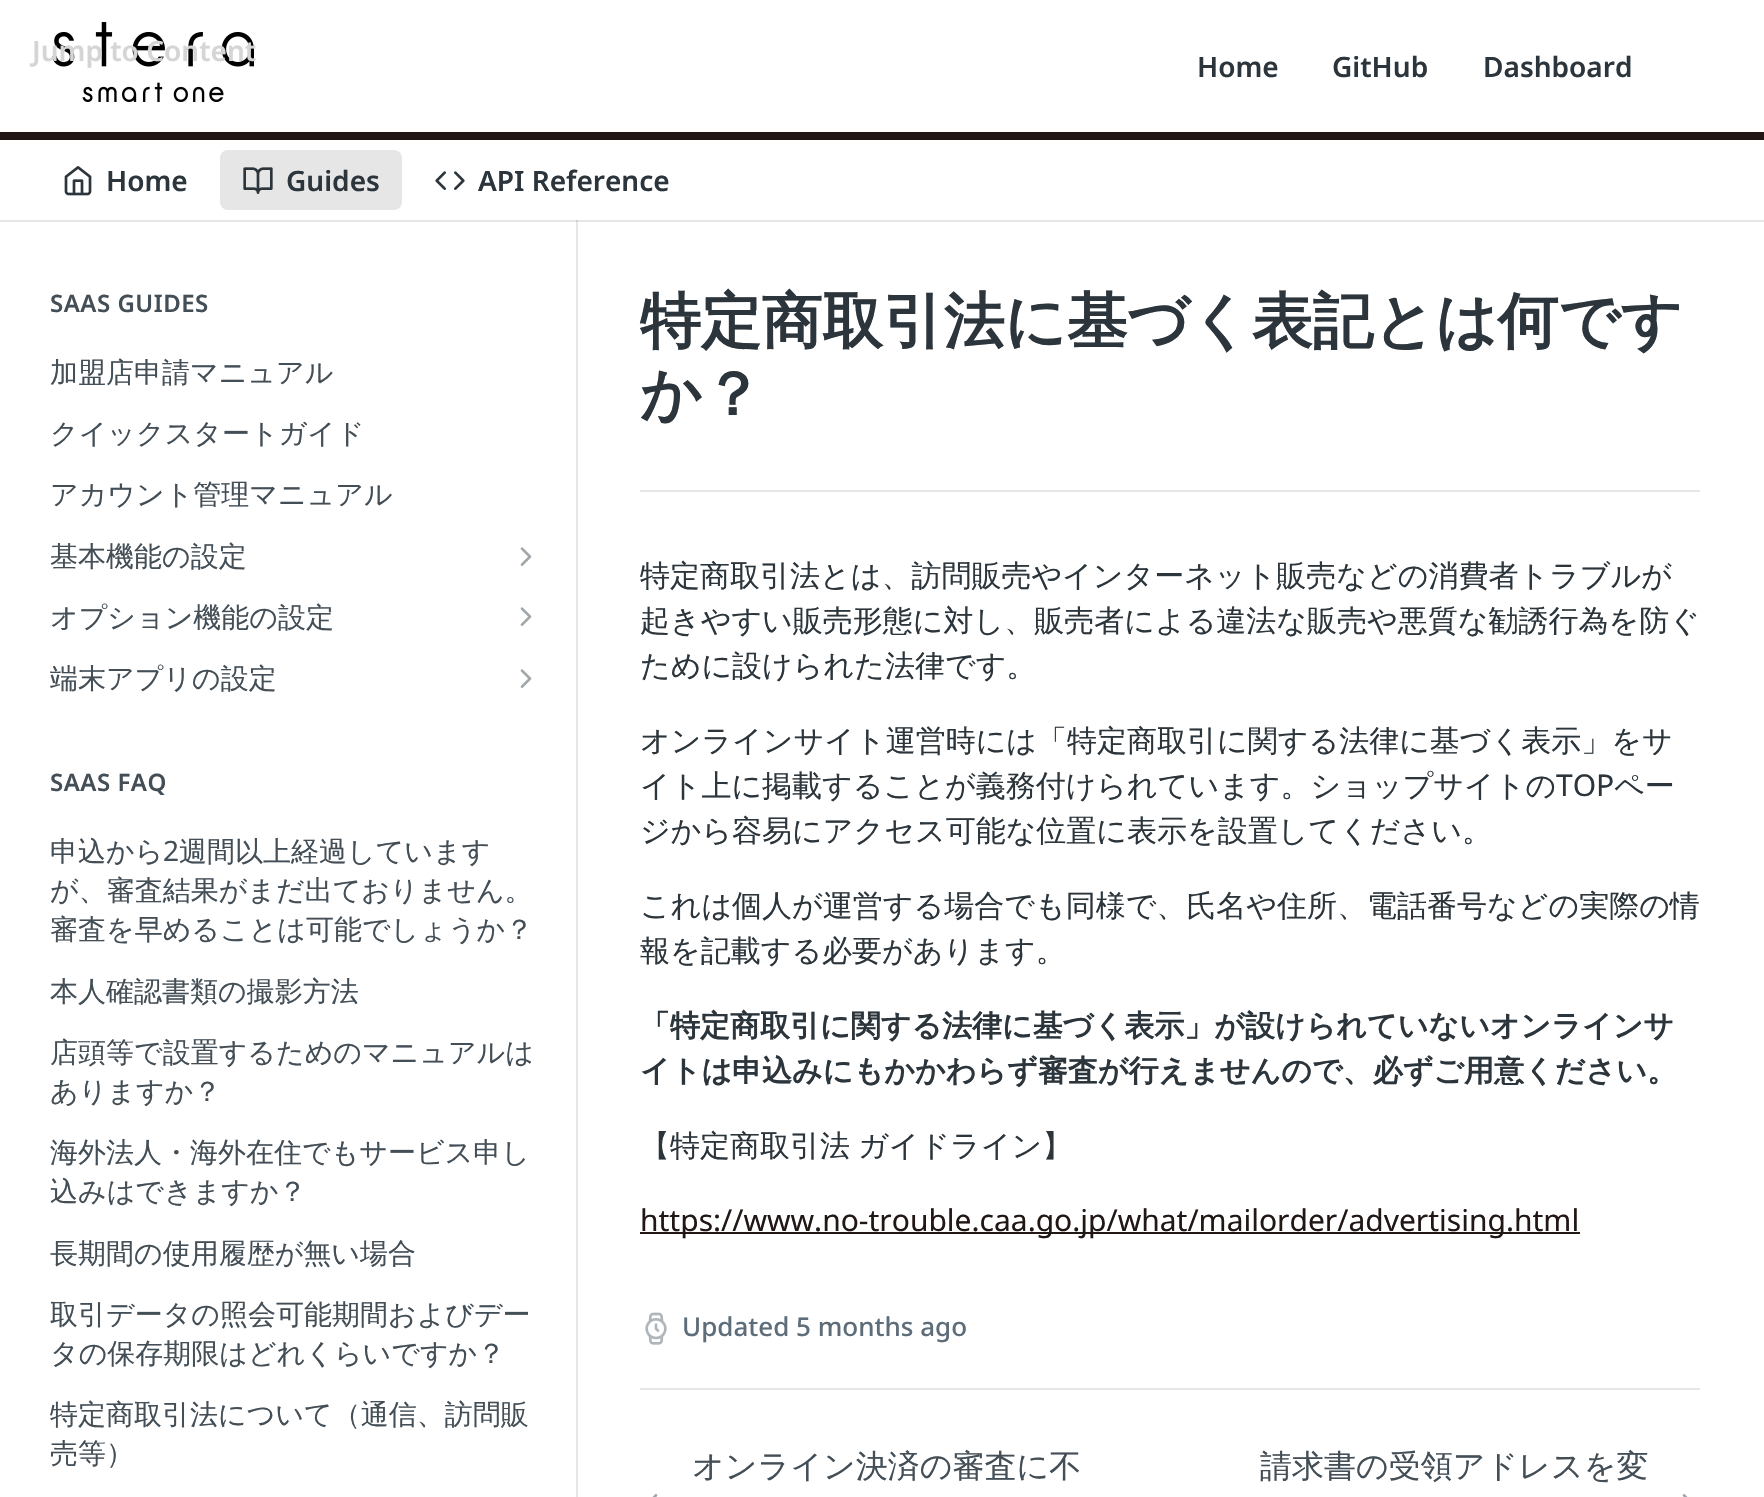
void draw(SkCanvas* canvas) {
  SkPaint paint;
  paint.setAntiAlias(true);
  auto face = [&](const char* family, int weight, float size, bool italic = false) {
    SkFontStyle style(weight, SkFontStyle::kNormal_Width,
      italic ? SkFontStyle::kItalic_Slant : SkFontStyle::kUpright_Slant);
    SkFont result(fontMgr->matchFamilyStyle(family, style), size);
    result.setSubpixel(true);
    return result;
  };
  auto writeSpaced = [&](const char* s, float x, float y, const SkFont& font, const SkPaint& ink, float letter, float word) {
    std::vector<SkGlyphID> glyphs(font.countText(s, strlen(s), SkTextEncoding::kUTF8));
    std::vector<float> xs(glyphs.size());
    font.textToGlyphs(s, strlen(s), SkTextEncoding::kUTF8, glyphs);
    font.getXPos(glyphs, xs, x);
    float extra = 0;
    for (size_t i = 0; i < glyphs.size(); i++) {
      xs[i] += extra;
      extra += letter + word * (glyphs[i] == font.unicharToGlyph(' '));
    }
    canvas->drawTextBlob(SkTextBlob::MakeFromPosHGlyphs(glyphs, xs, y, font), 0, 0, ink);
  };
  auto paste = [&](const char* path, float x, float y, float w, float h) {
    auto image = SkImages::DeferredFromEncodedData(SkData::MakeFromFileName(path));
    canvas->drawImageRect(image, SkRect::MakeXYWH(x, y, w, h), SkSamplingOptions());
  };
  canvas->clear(0xffffffff);
  paint.setColor(0xffe6e6e6);
  canvas->drawRect(SkRect::MakeXYWH(0, 220, 1764, 2), paint);
  paint.setColor(0xff211815);
  canvas->drawRect(SkRect::MakeXYWH(0, 132, 1764, 8), paint);
  paste("img/1.png", 52, 22, 202, 80);
  paste("img/2.png", 64, 166, 28, 30);
  paint.setColor(0xffe6e6e6);
  canvas->drawRoundRect(SkRect::MakeXYWH(220, 150, 182, 60), 8, 8, paint);
  paste("img/3.png", 243, 167, 30, 27);
  paste("img/4.png", 435, 171, 30, 19);
  canvas->drawRect(SkRect::MakeXYWH(576, 220, 2, 1277), paint);
  paint.setColor(0xffcfcfcf);
  canvas->drawRect(SkRect::MakeXYWH(576, 220, 2, 2), paint);
  paste("img/5.png", 520, 547, 12, 19);
  paste("img/5.png", 520, 607, 12, 19);
  paste("img/5.png", 520, 669, 12, 19);
  paint.setColor(0xffe6e6e6);
  canvas->drawRect(SkRect::MakeXYWH(640, 490, 1060, 2), paint);
  paint.setColor(0xff211815);
  canvas->drawRect(SkRect::MakeXYWH(640, 1232, 940, 2), paint);
  paste("img/6.png", 645, 1312, 22, 33);
  paint.setColor(0xffe6e6e6);
  canvas->drawRect(SkRect::MakeXYWH(640, 1388, 1060, 2), paint);
  paste("img/7.png", 652, 1494, 6, 3);
  paste("img/8.png", 1682, 1494, 6, 3);
  auto f0 = face("Noto Sans", 600, 28);
  paint.setColor(0xffd5d5d5);
  canvas->drawString("Jump to Content", 32, 61, f0, paint);
  paint.setColor(0xff2b353b);
  {
    const struct { const char* s; float x, y; } items[] = {
      {"Home", 1197, 77},
      {"GitHub", 1332, 77},
      {"Dashboard", 1483, 77},
      {"Home", 106, 191},
      {"Guides", 286, 191},
      {"API Reference", 478, 191},
    };
    for (auto [s, x, y] : items) {
      canvas->drawString(s, x, y, f0, paint);
    }
  }
  auto f1 = face("Noto Sans", 600, 24);
  paint.setColor(0xff434e56);
  writeSpaced("SAAS GUIDES", 50, 312, f1, paint, 0.5f, 0);
  auto f2 = face("WenQuanYi Zen Hei", 500, 28);
  {
    const struct { const char* s; float x, y; } items[] = {
      {"加盟店申請マニュアル", 50, 382},
      {"クイックスタートガイド", 50, 443},
      {"アカウント管理マニュアル", 50, 504},
      {"基本機能の設定", 50, 566},
      {"オプション機能の設定", 50, 627},
      {"端末アプリの設定", 50, 688},
    };
    for (auto [s, x, y] : items) {
      canvas->drawString(s, x, y, f2, paint);
    }
  }
  writeSpaced("SAAS FAQ", 50, 791, f1, paint, 0.5f, 0);
  canvas->drawString("申込から", 50, 861, f2, paint);
  auto f3 = face("Noto Sans", 400, 28);
  canvas->drawString("2", 163, 861, f3, paint);
  {
    const struct { const char* s; float x, y; } items[] = {
      {"週間以上経過しています", 179, 861},
      {"が、審査結果がまだ出ておりません。", 50, 900},
      {"審査を早めることは可能でしょうか？", 50, 939},
      {"本人確認書類の撮影方法", 50, 1001},
      {"店頭等で設置するためのマニュアルは", 50, 1062},
      {"ありますか？", 50, 1101},
      {"海外法人・海外在住でもサービス申し", 50, 1162},
      {"込みはできますか？", 50, 1201},
      {"長期間の使用履歴が無い場合", 50, 1263},
      {"取引データの照会可能期間およびデー", 50, 1324},
      {"タの保存期限はどれくらいですか？", 50, 1363},
      {"特定商取引法について（通信、訪問販", 50, 1424},
      {"売等）", 50, 1463},
    };
    for (auto [s, x, y] : items) {
      canvas->drawString(s, x, y, f2, paint);
    }
  }
  auto f4 = face("WenQuanYi Zen Hei", 700, 60.75f);
  paint.setColor(0xff2b353b);
  canvas->drawString("特定商取引法に基づく表記とは何です", 640, 342, f4, paint);
  canvas->drawString("か？", 640, 415, f4, paint);
  auto f5 = face("WenQuanYi Zen Hei", 500, 30);
  {
    const struct { const char* s; float x, y; } items[] = {
      {"特定商取引法とは、訪問販売やインターネット販売などの消費者トラブルが", 640, 586},
      {"起きやすい販売形態に対し、販売者による違法な販売や悪質な勧誘行為を防ぐ", 640, 631},
      {"ために設けられた法律です。", 640, 676},
      {"オンラインサイト運営時には「特定商取引に関する法律に基づく表示」をサ", 640, 751},
      {"イト上に掲載することが義務付けられています。ショップサイトの", 640, 796},
    };
    for (auto [s, x, y] : items) {
      canvas->drawString(s, x, y, f5, paint);
    }
  }
  auto f6 = face("Noto Sans", 400, 30);
  canvas->drawString("TOP", 1556, 796, f6, paint);
  {
    const struct { const char* s; float x, y; } items[] = {
      {"ペー", 1614, 796},
      {"ジから容易にアクセス可能な位置に表示を設置してください。", 640, 841},
      {"これは個人が運営する場合でも同様で、氏名や住所、電話番号などの実際の情", 640, 916},
      {"報を記載する必要があります。", 640, 961},
    };
    for (auto [s, x, y] : items) {
      canvas->drawString(s, x, y, f5, paint);
    }
  }
  auto f7 = face("WenQuanYi Zen Hei", 700, 30);
  canvas->drawString("「特定商取引に関する法律に基づく表示」が設けられていないオンラインサ", 640, 1036, f7, paint);
  canvas->drawString("イトは申込みにもかかわらず審査が行えませんので、必ずご用意ください。", 640, 1081, f7, paint);
  writeSpaced("【特定商取引法 ガイドライン】", 640, 1156, f5, paint, 0, -1);
  paint.setColor(0xff211815);
  canvas->drawString("https://www.no-trouble.caa.go.jp/what/mailorder/advertising.html", 640, 1231, f6, paint);
  auto f8 = face("Noto Sans", 500, 26);
  paint.setColor(0xff5d6d79);
  canvas->drawString("Updated 5 months ago", 682, 1336, f8, paint);
  auto f9 = face("WenQuanYi Zen Hei", 500, 32);
  paint.setColor(0xff434e56);
  canvas->drawString("オンライン決済の審査に不", 692, 1477, f9, paint);
  canvas->drawString("請求書の受領アドレスを変", 1260, 1477, f9, paint);
}
